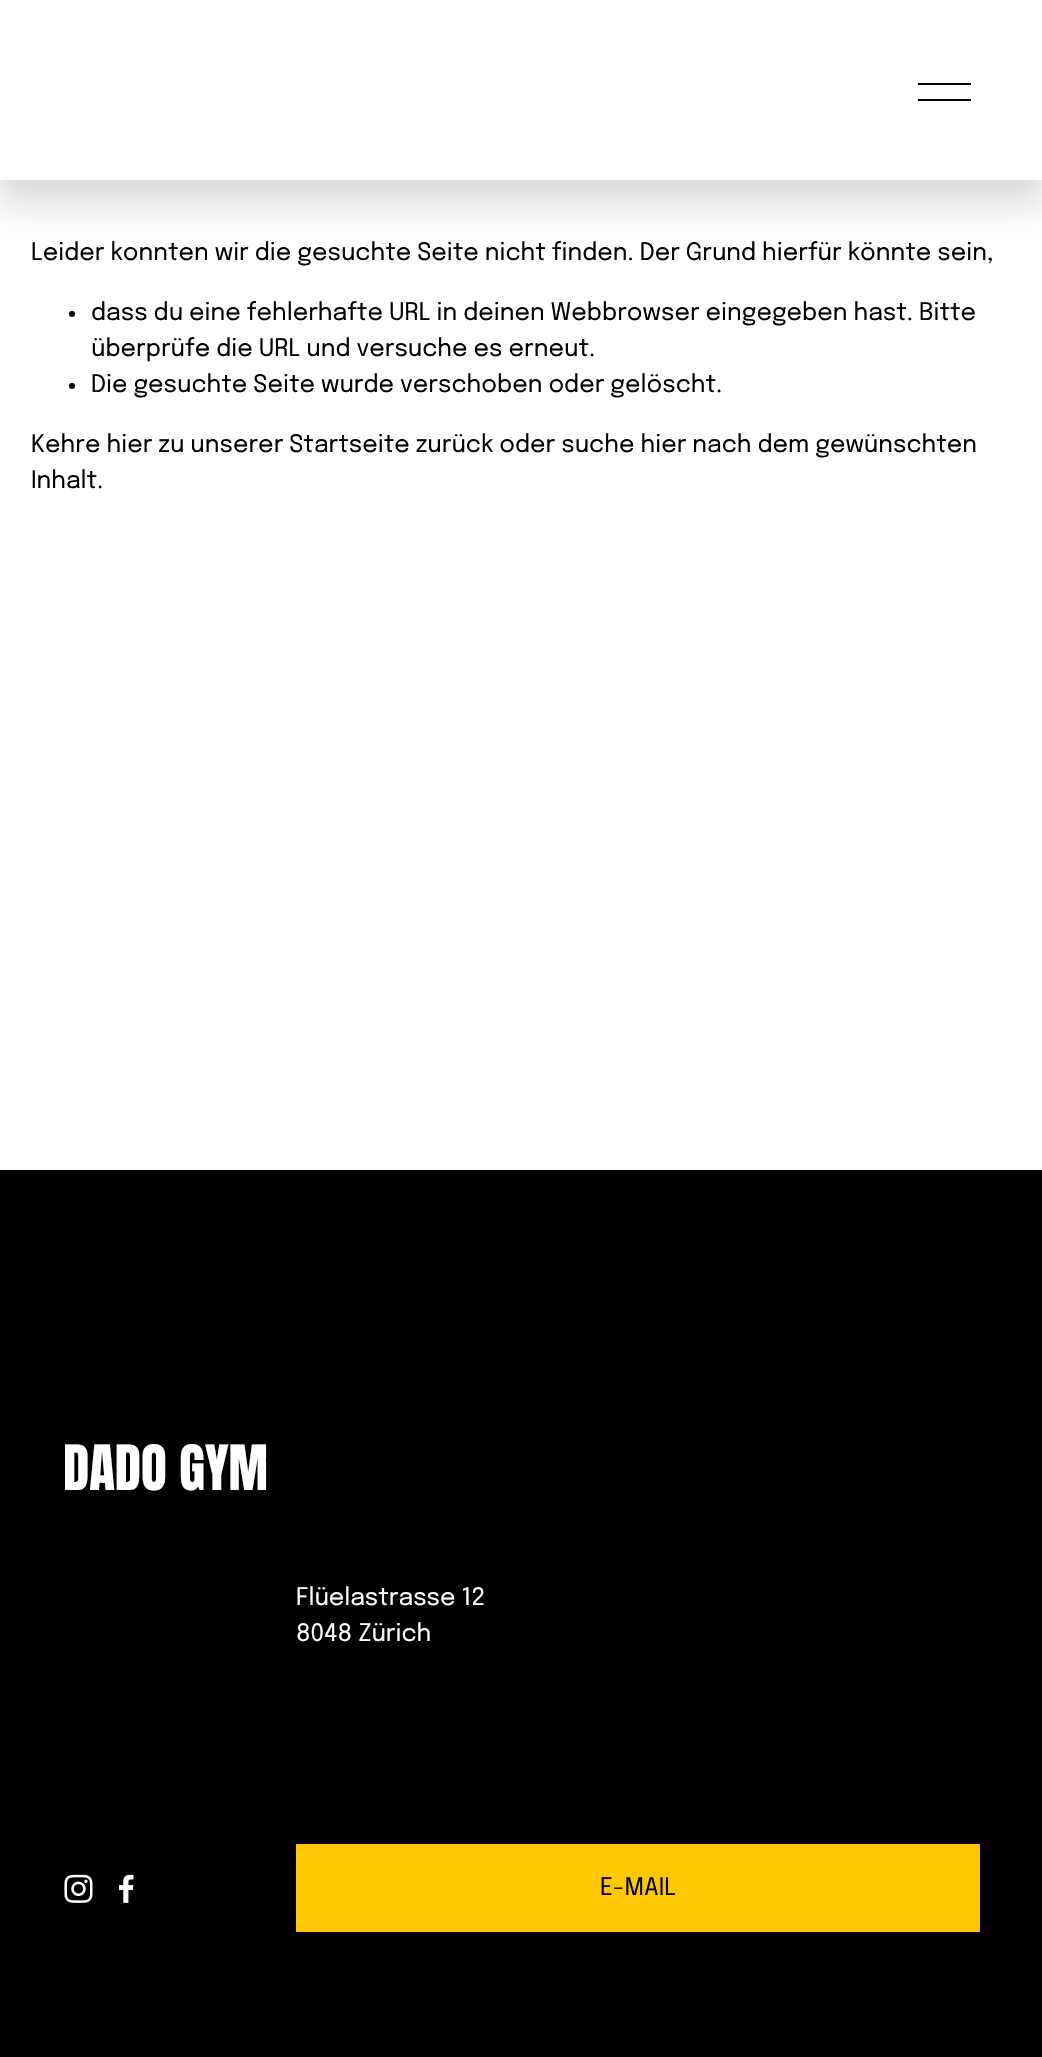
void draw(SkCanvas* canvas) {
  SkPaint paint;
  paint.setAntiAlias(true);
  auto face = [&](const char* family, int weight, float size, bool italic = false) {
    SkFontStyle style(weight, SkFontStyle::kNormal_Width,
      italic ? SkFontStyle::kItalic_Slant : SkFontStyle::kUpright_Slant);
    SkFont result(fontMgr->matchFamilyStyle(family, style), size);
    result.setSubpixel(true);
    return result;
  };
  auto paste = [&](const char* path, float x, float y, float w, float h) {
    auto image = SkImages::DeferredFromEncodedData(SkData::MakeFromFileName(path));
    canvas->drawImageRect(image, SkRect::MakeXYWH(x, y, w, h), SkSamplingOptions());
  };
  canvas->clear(0xffffffff);
  canvas->save();
  canvas->clipRect(SkRect::MakeXYWH(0, 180, 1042, 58));
  paint.setColor(0xffd9d9d9);
  paint.setMaskFilter(SkMaskFilter::MakeBlur(kNormal_SkBlurStyle, 17));
  canvas->drawRect(SkRect::MakeXYWH(-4, 14, 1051, 189), paint);
  paint.setMaskFilter(nullptr);
  canvas->restore();
  paint.setColor(0xff000000);
  canvas->drawRect(SkRect::MakeXYWH(918, 83, 53, 2), paint);
  canvas->drawRect(SkRect::MakeXYWH(918, 99, 53, 2), paint);
  canvas->drawCircle(72, 314, 3, paint);
  canvas->drawCircle(72, 386, 3, paint);
  canvas->drawRect(SkRect::MakeXYWH(0, 1170, 1042, 887), paint);
  paste("img/1.png", 64, 1874, 29, 29);
  paste("img/2.png", 118, 1874, 16, 29);
  paint.setColor(0xffffc700);
  canvas->drawRect(SkRect::MakeXYWH(296, 1844, 684, 88), paint);
  auto f0 = face("Epilogue", 400, 24);
  paint.setColor(0xff000000);
  {
    const struct { const char* s; float x, y; } items[] = {
      {"Leider konnten wir die gesuchte Seite nicht finden. Der Grund hierfür könnte sein,", 31, 260},
      {"dass du eine fehlerhafte URL in deinen Webbrowser eingegeben hast. Bitte", 91, 320},
      {"überprüfe die URL und versuche es erneut.", 91, 356},
      {"Die gesuchte Seite wurde verschoben oder gelöscht.", 91, 392},
      {"Kehre hier zu unserer Startseite zurück oder suche hier nach dem gewünschten", 31, 452},
      {"Inhalt.", 31, 488},
    };
    for (auto [s, x, y] : items) {
      canvas->drawString(s, x, y, f0, paint);
    }
  }
  auto f1 = face("Anton", 400, 53);
  paint.setColor(0xffffffff);
  canvas->drawString("DADO GYM", 63, 1490, f1, paint);
  canvas->drawString("Flüelastrasse 12", 296, 1605, f0, paint);
  canvas->drawString("8048 Zürich", 296, 1641, f0, paint);
  paint.setColor(0xff000000);
  canvas->drawString("E-MAIL", 600, 1895, f0, paint);
}
